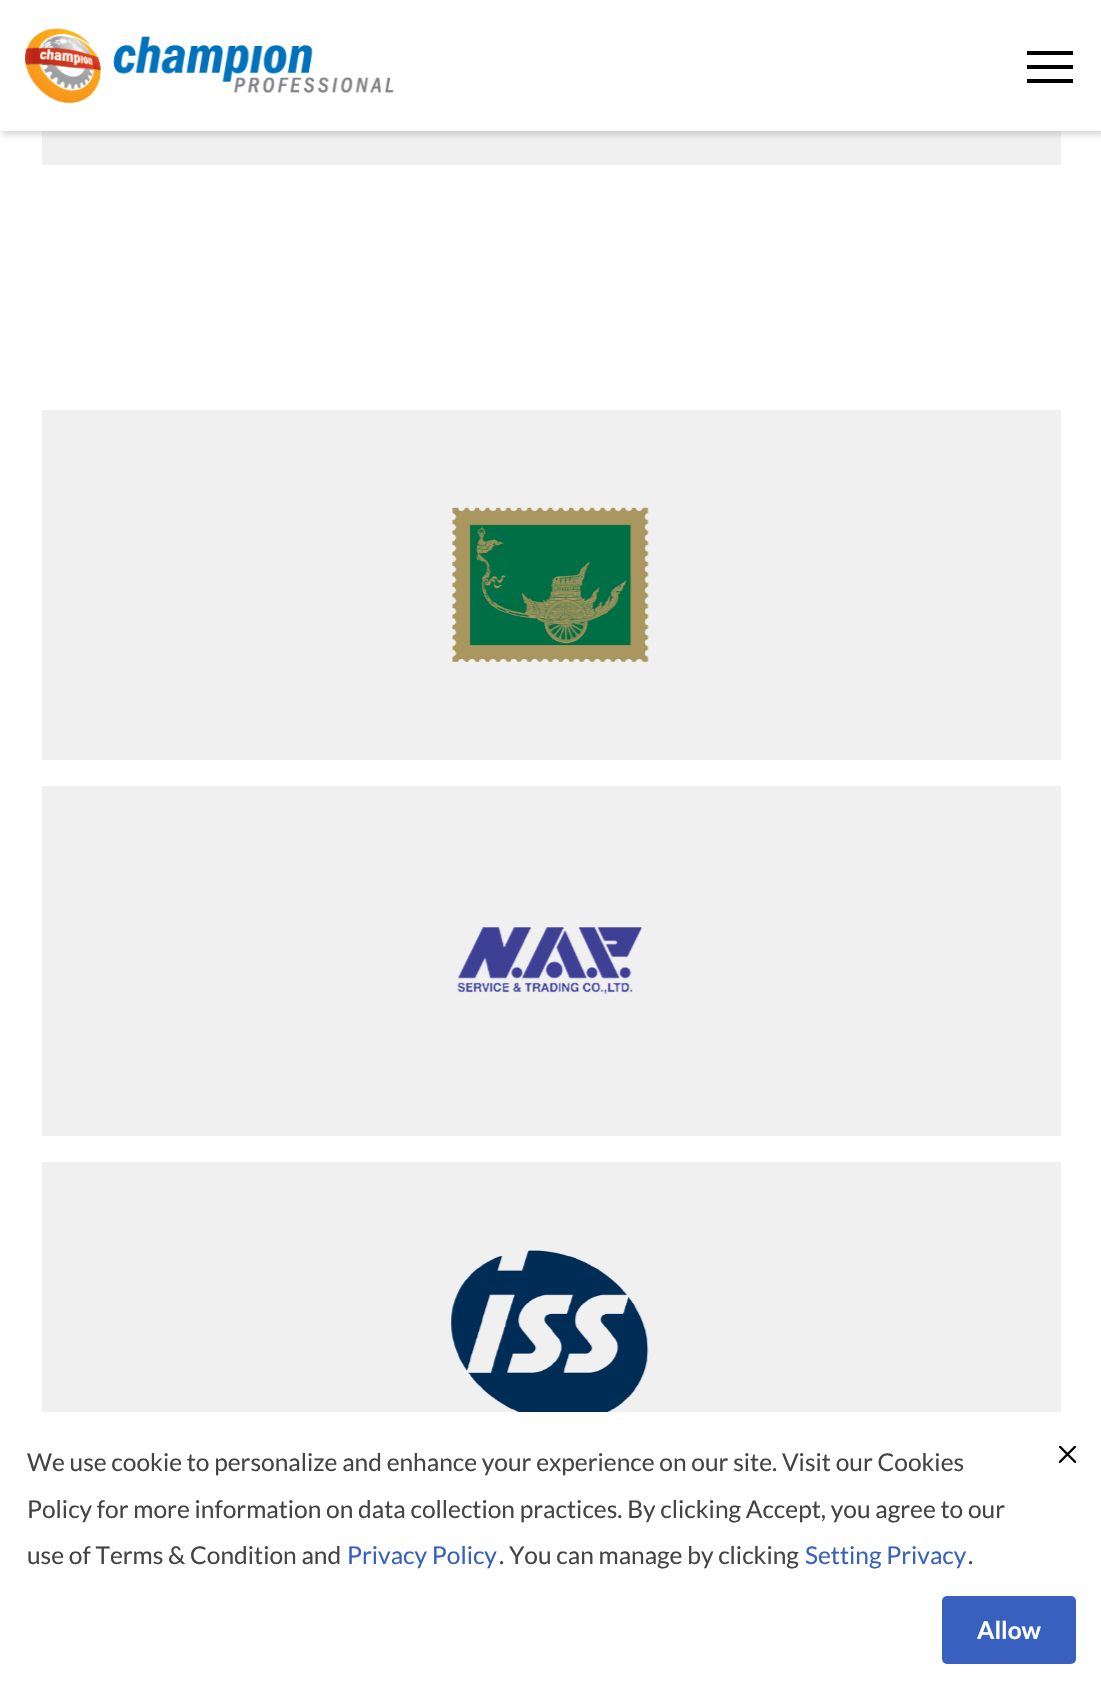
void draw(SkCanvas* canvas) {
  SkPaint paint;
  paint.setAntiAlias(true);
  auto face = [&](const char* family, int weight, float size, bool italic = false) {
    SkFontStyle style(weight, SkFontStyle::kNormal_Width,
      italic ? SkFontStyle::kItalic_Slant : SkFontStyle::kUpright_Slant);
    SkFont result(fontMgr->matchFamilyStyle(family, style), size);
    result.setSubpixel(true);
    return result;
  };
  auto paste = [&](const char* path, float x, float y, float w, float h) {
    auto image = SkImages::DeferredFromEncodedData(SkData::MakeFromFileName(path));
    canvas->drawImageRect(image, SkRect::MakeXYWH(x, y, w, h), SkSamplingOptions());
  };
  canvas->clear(0xffffffff);
  paint.setColor(0xfff0f0f0);
  canvas->drawRect(SkRect::MakeXYWH(42, 131, 1019, 34), paint);
  paint.setColor(0x24000000);
  paint.setMaskFilter(SkMaskFilter::MakeBlur(kNormal_SkBlurStyle, 2.5f));
  canvas->drawRect(SkRect::MakeXYWH(2, 4, 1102, 131), paint);
  paint.setMaskFilter(nullptr);
  paint.setColor(0xffffffff);
  canvas->drawRect(SkRect::MakeXYWH(0, 0, 1101, 131), paint);
  paste("img/1.png", 25, 28, 369, 76);
  {
    const struct { float x, y, w, h; SkColor color; } items[] = {
      {1027, 65, 46, 4, 0xff000000},
      {1027, 51, 46, 4, 0xff000000},
      {1027, 79, 46, 4, 0xff000000},
      {42, 410, 1019, 350, 0xfff0f0f0},
    };
    for (auto [x, y, w, h, color] : items) {
      paint.setColor(color);
      canvas->drawRect(SkRect::MakeXYWH(x, y, w, h), paint);
    }
  }
  paste("img/2.png", 452, 507, 197, 155);
  canvas->drawRect(SkRect::MakeXYWH(42, 786, 1019, 350), paint);
  paste("img/3.png", 457, 927, 186, 67);
  canvas->drawRect(SkRect::MakeXYWH(42, 1162, 1019, 250), paint);
  paste("img/4.png", 450, 1250, 199, 162);
  paste("img/5.png", 1059, 1446, 17, 17);
  paint.setColor(0xff3860be);
  canvas->drawRoundRect(SkRect::MakeXYWH(942, 1596, 134, 68), 5, 5, paint);
  auto f0 = face("Lato", 400, 24.5f);
  paint.setColor(0xff444444);
  {
    const struct { const char* s; float x, y; } items[] = {
      {"We use cookie to personalize and enhance your experience on our site. Visit our Cookies", 27, 1471},
      {"Policy for more information on data collection practices. By clicking Accept, you agree to our", 27, 1518},
      {"use of Terms & Condition and", 27, 1564},
    };
    for (auto [s, x, y] : items) {
      canvas->drawString(s, x, y, f0, paint);
    }
  }
  paint.setColor(0xff3860be);
  canvas->drawString("Privacy Policy", 347, 1564, f0, paint);
  paint.setColor(0xff444444);
  canvas->drawString(". You can manage by clicking", 499, 1564, f0, paint);
  paint.setColor(0xff3860be);
  canvas->drawString("Setting Privacy", 805, 1564, f0, paint);
  paint.setColor(0xff444444);
  canvas->drawString(".", 968, 1564, f0, paint);
  auto f1 = face("Lato", 700, 24.5f);
  paint.setColor(0xffffffff);
  canvas->drawString("Allow", 977, 1639, f1, paint);
}
